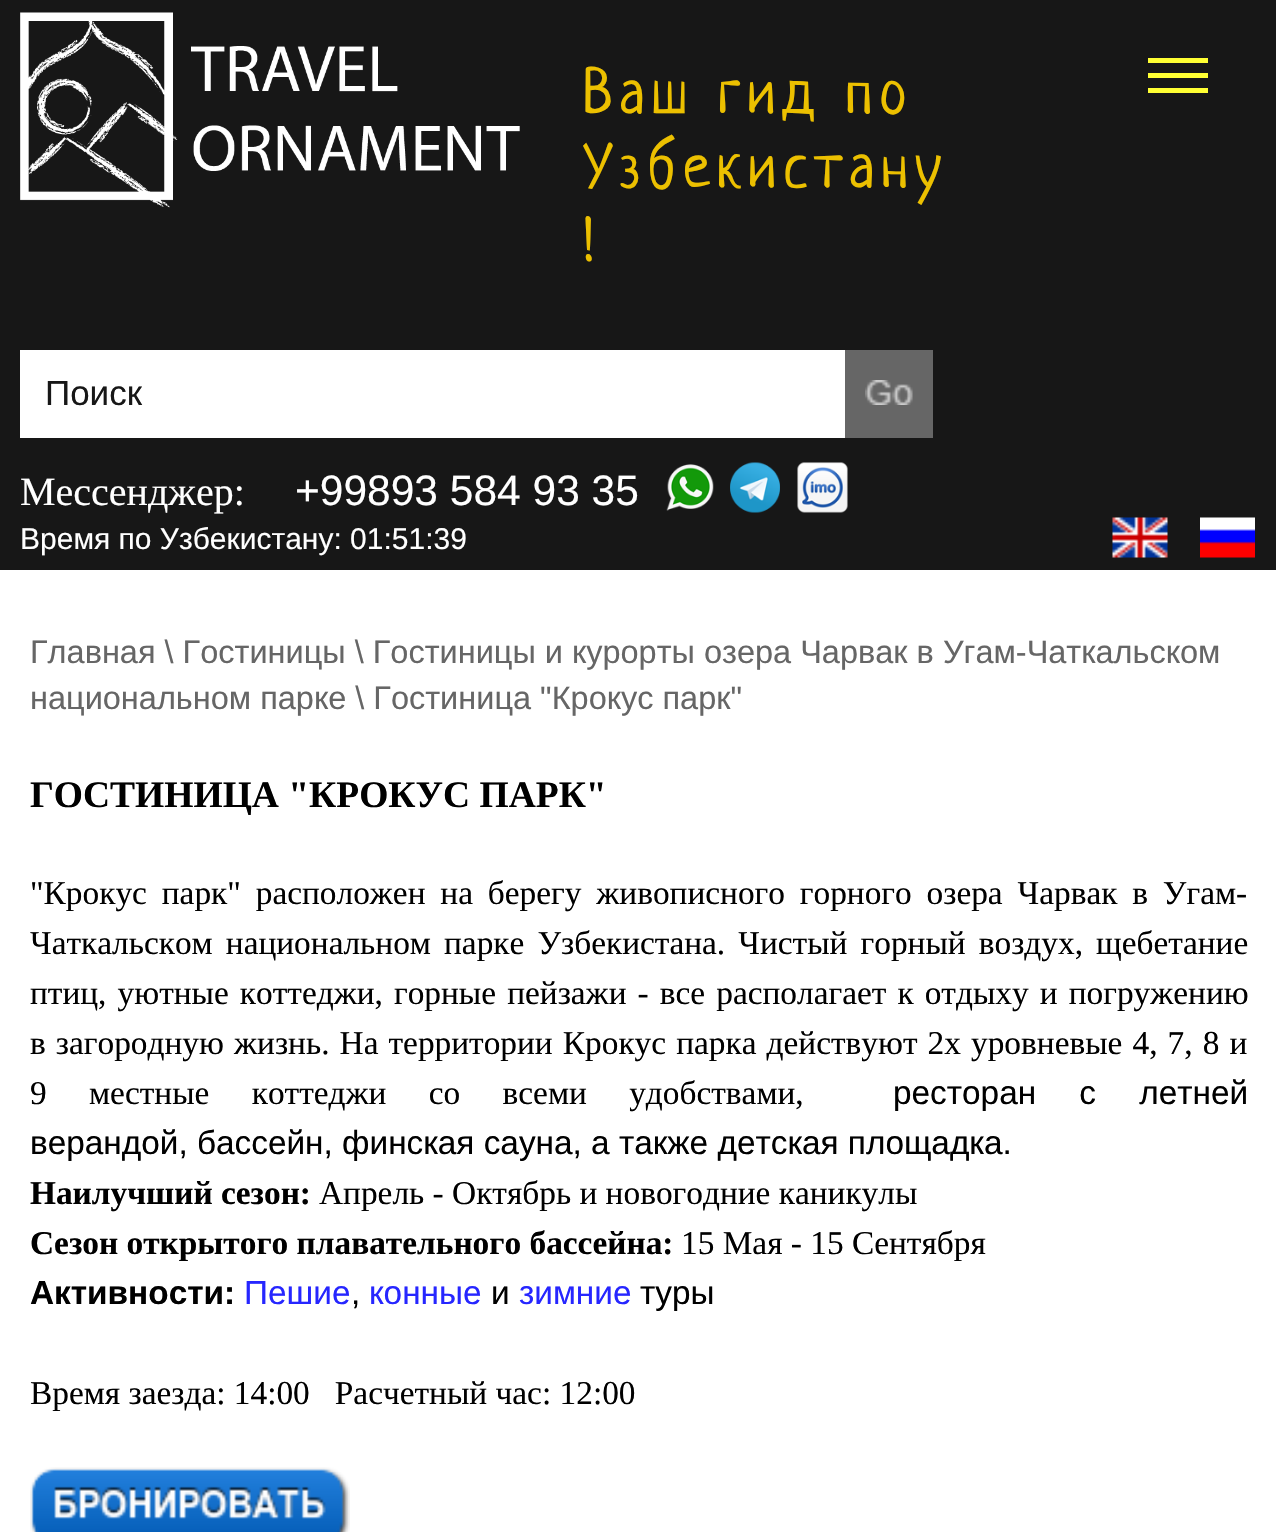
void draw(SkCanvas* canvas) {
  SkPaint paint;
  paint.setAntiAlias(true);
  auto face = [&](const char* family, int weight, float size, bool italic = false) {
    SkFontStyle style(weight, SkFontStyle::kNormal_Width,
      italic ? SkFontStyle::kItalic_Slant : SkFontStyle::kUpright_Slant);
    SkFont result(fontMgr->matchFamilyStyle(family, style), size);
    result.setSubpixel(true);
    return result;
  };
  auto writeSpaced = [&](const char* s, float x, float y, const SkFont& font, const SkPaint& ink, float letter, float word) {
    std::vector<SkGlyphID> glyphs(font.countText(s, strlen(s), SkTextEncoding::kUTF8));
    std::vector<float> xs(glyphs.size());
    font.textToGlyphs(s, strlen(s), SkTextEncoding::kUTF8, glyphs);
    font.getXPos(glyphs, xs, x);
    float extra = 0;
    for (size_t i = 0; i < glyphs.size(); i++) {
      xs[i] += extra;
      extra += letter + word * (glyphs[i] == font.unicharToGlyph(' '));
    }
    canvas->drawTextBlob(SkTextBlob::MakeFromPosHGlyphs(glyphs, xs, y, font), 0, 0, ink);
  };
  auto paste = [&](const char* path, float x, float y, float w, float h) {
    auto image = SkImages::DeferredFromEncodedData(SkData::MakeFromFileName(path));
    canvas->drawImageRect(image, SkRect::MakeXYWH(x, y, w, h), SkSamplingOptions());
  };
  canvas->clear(0xffffffff);
  {
    const struct { float x, y, w, h; SkColor color; } items[] = {
      {0, 0, 1276, 570, 0xff171717},
      {1148, 58, 60, 5, 0xffffff33},
      {1148, 73, 60, 5, 0xffffff33},
      {1148, 88, 60, 5, 0xffffff33},
    };
    for (auto [x, y, w, h, color] : items) {
      paint.setColor(color);
      canvas->drawRect(SkRect::MakeXYWH(x, y, w, h), paint);
    }
  }
  paste("img/1.png", 20, 12, 500, 196);
  paint.setColor(0xffffffff);
  canvas->drawRect(SkRect::MakeXYWH(20, 350, 825, 88), paint);
  paint.setColor(0xff666666);
  canvas->drawRect(SkRect::MakeXYWH(845, 350, 88, 88), paint);
  paste("img/2.png", 865, 380, 48, 25);
  paste("img/3.png", 666, 464, 48, 47);
  paste("img/4.png", 730, 462, 50, 51);
  paste("img/5.png", 797, 462, 51, 51);
  paste("img/6.png", 1112, 517, 56, 41);
  paste("img/7.png", 1200, 517, 55, 41);
  paste("img/8.png", 30, 1467, 320, 65);
  auto f0 = face("Neucha", 400, 62);
  paint.setColor(0xffecc000);
  writeSpaced("Ваш гид по", 583, 113, f0, paint, 6.6f, 0);
  writeSpaced("Узбекистану", 583, 187, f0, paint, 6.6f, 0);
  writeSpaced("!", 583, 261, f0, paint, 3, 0);
  auto f1 = face("Liberation Sans", 400, 35);
  paint.setColor(0xff171717);
  canvas->drawString("Поиск", 45, 405, f1, paint);
  auto f2 = face("Liberation Serif", 400, 40);
  paint.setColor(0xffffffff);
  canvas->drawString("Мессенджер:", 20, 505, f2, paint);
  auto f3 = face("Liberation Sans", 400, 42.5f);
  canvas->drawString("+99893 584 93 35", 295, 505, f3, paint);
  auto f4 = face("Liberation Sans", 400, 30);
  canvas->drawString("Время по Узбекистану: 01:51:39", 20, 549, f4, paint);
  auto f5 = face("Liberation Sans", 400, 32.5f);
  paint.setColor(0xff666666);
  canvas->drawString("Главная \\ Гостиницы \\ Гостиницы и курорты озера Чарвак в Угам-Чаткальском", 30, 663, f5, paint);
  canvas->drawString("национальном парке \\ Гостиница \"Крокус парк\"", 30, 709, f5, paint);
  auto f6 = face("Liberation Serif", 700, 37.5f);
  paint.setColor(0xff000000);
  canvas->drawString("ГОСТИНИЦА \"КРОКУС ПАРК\"", 30, 807, f6, paint);
  auto f7 = face("Liberation Serif", 400, 33.35f);
  writeSpaced("\"Крокус парк\" расположен на берегу живописного горного озера Чарвак в Угам-", 30, 904, f7, paint, 0, 6.5f);
  writeSpaced("Чаткальском национальном парке Узбекистана. Чистый горный воздух, щебетание", 30, 954, f7, paint, 0, 4.75f);
  writeSpaced("птиц, уютные коттеджи, горные пейзажи - все располагает к отдыху и погружению", 30, 1004, f7, paint, 0, 2.75f);
  writeSpaced("в загородную жизнь. На территории Крокус парка действуют 2х уровневые 4, 7, 8 и", 30, 1054, f7, paint, 0, 1.75f);
  writeSpaced("9 местные коттеджи со всеми удобствами,", 30, 1104, f7, paint, 0, 34);
  auto f8 = face("Liberation Sans", 400, 33.35f);
  writeSpaced("ресторан с летней", 893, 1104, f8, paint, 0, 34);
  canvas->drawString("верандой, бассейн, финская сауна, а также детская площадка.", 30, 1154, f8, paint);
  auto f9 = face("Liberation Serif", 700, 33.35f);
  canvas->drawString("Наилучший сезон:", 30, 1204, f9, paint);
  canvas->drawString("Апрель - Октябрь и новогодние каникулы", 319, 1204, f7, paint);
  canvas->drawString("Сезон открытого плавательного бассейна:", 30, 1254, f9, paint);
  canvas->drawString("15 Мая - 15 Сентября", 681, 1254, f7, paint);
  auto f10 = face("Liberation Sans", 700, 33.35f);
  canvas->drawString("Активности:", 30, 1304, f10, paint);
  paint.setColor(0xff2626ff);
  canvas->drawString("Пешие", 244, 1304, f8, paint);
  paint.setColor(0xff000000);
  canvas->drawString(",", 351, 1304, f8, paint);
  paint.setColor(0xff2626ff);
  canvas->drawString("конные", 369, 1304, f8, paint);
  paint.setColor(0xff000000);
  canvas->drawString("и", 491, 1304, f8, paint);
  paint.setColor(0xff2626ff);
  canvas->drawString("зимние", 519, 1304, f8, paint);
  paint.setColor(0xff000000);
  canvas->drawString("туры", 640, 1304, f8, paint);
  canvas->drawString("Время заезда: 14:00   Расчетный час: 12:00", 30, 1404, f7, paint);
}
